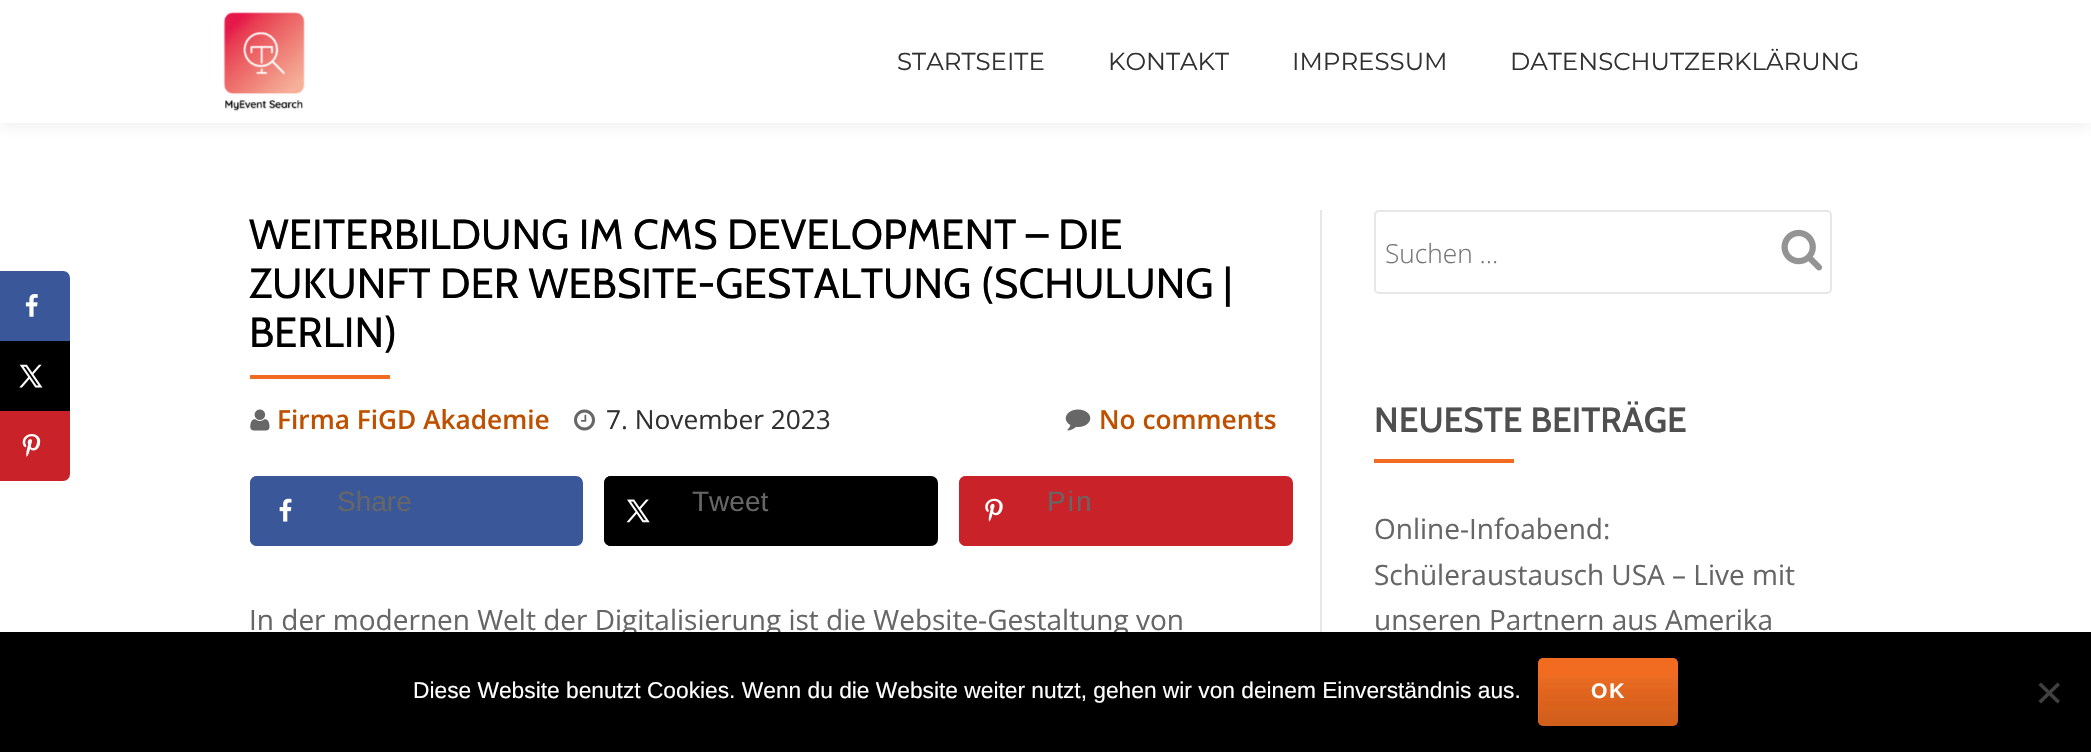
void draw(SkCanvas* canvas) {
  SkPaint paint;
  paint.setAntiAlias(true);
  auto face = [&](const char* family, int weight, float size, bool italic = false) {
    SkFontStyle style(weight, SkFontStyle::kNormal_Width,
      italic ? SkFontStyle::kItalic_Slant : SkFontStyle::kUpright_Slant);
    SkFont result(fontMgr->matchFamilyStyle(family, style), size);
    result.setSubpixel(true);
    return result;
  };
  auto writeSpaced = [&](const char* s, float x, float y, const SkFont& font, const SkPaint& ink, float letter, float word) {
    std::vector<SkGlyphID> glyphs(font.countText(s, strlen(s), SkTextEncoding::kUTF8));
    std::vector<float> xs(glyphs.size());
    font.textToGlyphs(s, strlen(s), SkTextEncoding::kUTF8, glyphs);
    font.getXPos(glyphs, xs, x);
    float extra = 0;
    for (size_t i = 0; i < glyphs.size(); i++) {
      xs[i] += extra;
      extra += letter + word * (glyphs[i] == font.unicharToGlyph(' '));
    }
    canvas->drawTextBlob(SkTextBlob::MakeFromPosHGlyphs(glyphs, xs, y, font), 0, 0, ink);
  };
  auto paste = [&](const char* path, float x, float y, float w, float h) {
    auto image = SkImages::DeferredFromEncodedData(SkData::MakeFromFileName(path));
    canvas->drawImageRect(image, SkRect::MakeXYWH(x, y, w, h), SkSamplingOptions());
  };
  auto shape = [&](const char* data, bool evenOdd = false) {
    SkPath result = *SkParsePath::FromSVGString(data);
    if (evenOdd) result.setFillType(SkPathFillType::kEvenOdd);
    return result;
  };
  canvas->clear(0xffffffff);
  paint.setColor(0x14323232);
  paint.setMaskFilter(SkMaskFilter::MakeBlur(kNormal_SkBlurStyle, 7));
  canvas->drawRect(SkRect::MakeXYWH(0, 4, 2091, 122), paint);
  paint.setMaskFilter(nullptr);
  paint.setColor(0xffffffff);
  canvas->drawRect(SkRect::MakeXYWH(0, 0, 2091, 123), paint);
  paste("img/1.png", 223, 12, 82, 99);
  paint.setColor(0xff3a579a);
  canvas->drawPath(shape("M2 273H63C66 273 68 275 68 278V339H2Z"), paint);
  paint.setStroke(true);
  paint.setStrokeWidth(4);
  canvas->drawPath(shape("M2 273H63C66 273 68 275 68 278V339H2Z"), paint);
  paste("img/2.png", 25, 294, 13, 23);
  paint.setStroke(false);
  paint.setColor(0xff000000);
  canvas->drawRect(SkRect::MakeXYWH(0, 341, 70, 70), paint);
  paste("img/3.png", 19, 364, 24, 24);
  paint.setColor(0xffc92228);
  canvas->drawPath(shape("M2 413H68V474C68 477 66 479 63 479H2Z"), paint);
  paint.setStroke(true);
  canvas->drawPath(shape("M2 413H68V474C68 477 66 479 63 479H2Z"), paint);
  paste("img/4.png", 22, 434, 19, 23);
  paint.setStroke(false);
  paint.setColor(0xfff16c20);
  canvas->drawRect(SkRect::MakeXYWH(250, 375, 140, 4), paint);
  paste("img/5.png", 250, 409, 20, 22);
  paste("img/6.png", 574, 409, 21, 22);
  paste("img/7.png", 1065, 409, 26, 22);
  paint.setColor(0xff3a579a);
  canvas->drawRoundRect(SkRect::MakeXYWH(252, 478, 329, 66), 5, 5, paint);
  paint.setStroke(true);
  canvas->drawRoundRect(SkRect::MakeXYWH(252, 478, 329, 66), 5, 5, paint);
  paint.setStroke(false);
  canvas->drawPath(shape("M257 478H318V544H257C254 544 252 542 252 539V483C252 480 254 478 257 478Z"), paint);
  paint.setStroke(true);
  canvas->drawPath(shape("M257 478H318V544H257C254 544 252 542 252 539V483C252 480 254 478 257 478Z"), paint);
  paste("img/8.png", 279, 498, 13, 24);
  paint.setStroke(false);
  paint.setColor(0xff000000);
  canvas->drawRoundRect(SkRect::MakeXYWH(606, 478, 330, 66), 5, 5, paint);
  paint.setStroke(true);
  canvas->drawRoundRect(SkRect::MakeXYWH(606, 478, 330, 66), 5, 5, paint);
  paint.setStroke(false);
  canvas->drawPath(shape("M611 478H672V544H611C608 544 606 542 606 539V483C606 480 608 478 611 478Z"), paint);
  paint.setStroke(true);
  canvas->drawPath(shape("M611 478H672V544H611C608 544 606 542 606 539V483C606 480 608 478 611 478Z"), paint);
  paste("img/9.png", 626, 499, 24, 24);
  paint.setStroke(false);
  paint.setColor(0xffc92228);
  canvas->drawRoundRect(SkRect::MakeXYWH(961, 478, 330, 66), 5, 5, paint);
  paint.setStroke(true);
  canvas->drawRoundRect(SkRect::MakeXYWH(961, 478, 330, 66), 5, 5, paint);
  paint.setStroke(false);
  canvas->drawPath(shape("M966 478H1027V544H966C963 544 961 542 961 539V483C961 480 963 478 966 478Z"), paint);
  paint.setStroke(true);
  canvas->drawPath(shape("M966 478H1027V544H966C963 544 961 542 961 539V483C961 480 963 478 966 478Z"), paint);
  paste("img/10.png", 985, 498, 18, 24);
  paint.setStroke(false);
  paint.setColor(0xffe7e7e7);
  canvas->drawRect(SkRect::MakeXYWH(1320, 210, 2, 422), paint);
  paint.setStroke(true);
  paint.setStrokeWidth(2);
  canvas->drawRoundRect(SkRect::MakeXYWH(1375, 211, 456, 82), 4, 4, paint);
  paste("img/11.png", 1781, 229, 42, 42);
  paint.setStroke(false);
  paint.setColor(0xfff16c20);
  canvas->drawRect(SkRect::MakeXYWH(1374, 459, 140, 4), paint);
  auto f0 = face("Montserrat", 400, 24.5f);
  paint.setColor(0xff313131);
  {
    const struct { const char* s; float x, y; } items[] = {
      {"STARTSEITE", 897, 70},
      {"KONTAKT", 1108, 70},
      {"IMPRESSUM", 1292, 70},
      {"DATENSCHUTZERKLÄRUNG", 1510, 70},
    };
    for (auto [s, x, y] : items) {
      canvas->drawString(s, x, y, f0, paint);
    }
  }
  auto f1 = face("Cabin", 400, 42);
  paint.setColor(0xff000000);
  {
    const struct { const char* s; float x, y; } items[] = {
      {"WEITERBILDUNG IM CMS DEVELOPMENT – DIE", 249, 249},
      {"ZUKUNFT DER WEBSITE-GESTALTUNG (SCHULUNG |", 249, 298},
      {"BERLIN)", 249, 347},
    };
    for (auto [s, x, y] : items) {
      canvas->drawString(s, x, y, f1, paint);
    }
  }
  auto f2 = face("Open Sans", 600, 26.25f);
  paint.setColor(0xffbe5000);
  canvas->drawString("Firma FiGD Akademie", 277, 429, f2, paint);
  auto f3 = face("Open Sans", 400, 26.25f);
  paint.setColor(0xff313131);
  canvas->drawString("7. November 2023", 606, 429, f3, paint);
  paint.setColor(0xffbe5000);
  canvas->drawString("No comments", 1099, 429, f2, paint);
  auto f4 = face("Liberation Sans", 400, 28);
  paint.setColor(0xff666666);
  canvas->drawString("Share", 337, 511, f4, paint);
  canvas->drawString("Tweet", 692, 511, f4, paint);
  writeSpaced("Pin", 1047, 511, f4, paint, 2, 0);
  auto f5 = face("Open Sans", 400, 28);
  canvas->drawString("In der modernen Welt der Digitalisierung ist die Website-Gestaltung von", 249, 630, f5, paint);
  auto f6 = face("Open Sans", 300, 26.25f);
  paint.setColor(0xff757575);
  canvas->drawString("Suchen …", 1385, 263, f6, paint);
  auto f7 = face("Cabin", 600, 35);
  paint.setColor(0xff4f4f4f);
  canvas->drawString("NEUESTE BEITRÄGE", 1374, 432, f7, paint);
  paint.setColor(0xff666666);
  {
    const struct { const char* s; float x, y; } items[] = {
      {"Online-Infoabend:", 1374, 539},
      {"Schüleraustausch USA – Live mit", 1374, 585},
      {"unseren Partnern aus Amerika", 1374, 630},
    };
    for (auto [s, x, y] : items) {
      canvas->drawString(s, x, y, f5, paint);
    }
  }
  paint.setColor(0xff000000);
  canvas->drawRect(SkRect::MakeXYWH(0, 632, 2091, 120), paint);
  auto f8 = face("Liberation Sans", 400, 22.75f);
  paint.setColor(0xffffffff);
  canvas->drawString("Diese Website benutzt Cookies. Wenn du die Website weiter nutzt, gehen wir von deinem Einverständnis aus.", 413, 698, f8, paint);
  paint.setColor(0xfff16c20);
  canvas->drawRoundRect(SkRect::MakeXYWH(1538, 658, 140, 68), 5, 5, paint);
  paste("img/12.png", 1538, 676, 140, 50);
  auto f9 = face("Liberation Sans", 700, 21);
  paint.setColor(0xffffffff);
  writeSpaced("OK", 1591, 698, f9, paint, 2, 0);
  paint.setColor(0xff404040);
  canvas->drawPath(shape("M2057.5 682.5L2060 685L2041 703.5L2038.5 701Z"), paint);
  canvas->drawPath(shape("M2038.5 685L2041 682.5L2060 701L2057.5 703.5Z"), paint);
}
